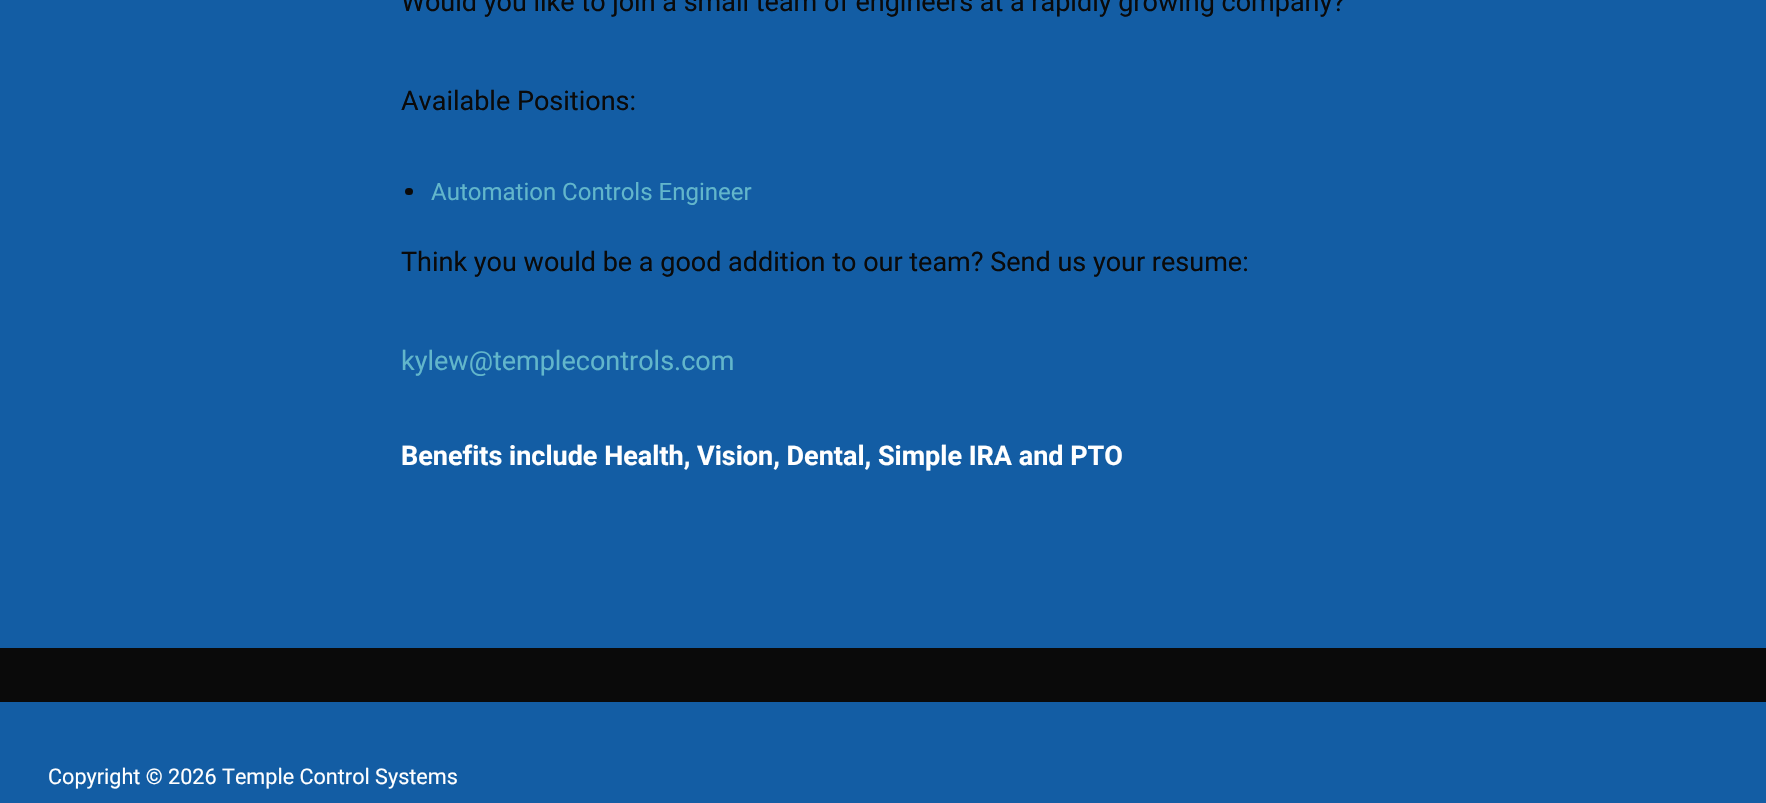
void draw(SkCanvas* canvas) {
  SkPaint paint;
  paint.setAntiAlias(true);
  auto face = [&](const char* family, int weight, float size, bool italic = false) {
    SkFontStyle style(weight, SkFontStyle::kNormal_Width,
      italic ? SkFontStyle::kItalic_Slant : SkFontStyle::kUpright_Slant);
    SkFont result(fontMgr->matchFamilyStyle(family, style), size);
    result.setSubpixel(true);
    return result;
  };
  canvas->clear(0xff135da4);
  paint.setColor(0xff0a0a0a);
  canvas->drawRoundRect(SkRect::MakeXYWH(405, 188, 8, 7), 3.5f, 3.5f, paint);
  canvas->drawRect(SkRect::MakeXYWH(0, 648, 1766, 54), paint);
  auto f0 = face("Roboto", 400, 27);
  canvas->drawString("Would you like to join a small team of engineers at a rapidly growing company?", 401, 11, f0, paint);
  canvas->drawString("Available Positions:", 401, 110, f0, paint);
  auto f1 = face("Roboto", 400, 24);
  paint.setColor(0xff62b6cb);
  canvas->drawString("Automation Controls Engineer", 431, 200, f1, paint);
  paint.setColor(0xff0a0a0a);
  canvas->drawString("Think you would be a good addition to our team? Send us your resume:", 401, 271, f0, paint);
  paint.setColor(0xff62b6cb);
  canvas->drawString("kylew@templecontrols.com", 401, 370, f0, paint);
  auto f2 = face("Roboto", 700, 27);
  paint.setColor(0xffffffff);
  canvas->drawString("Benefits include Health, Vision, Dental, Simple IRA and PTO", 401, 465, f2, paint);
  auto f3 = face("Roboto", 400, 21.6f);
  canvas->drawString("Copyright © 2026 Temple Control Systems", 48, 784, f3, paint);
}
